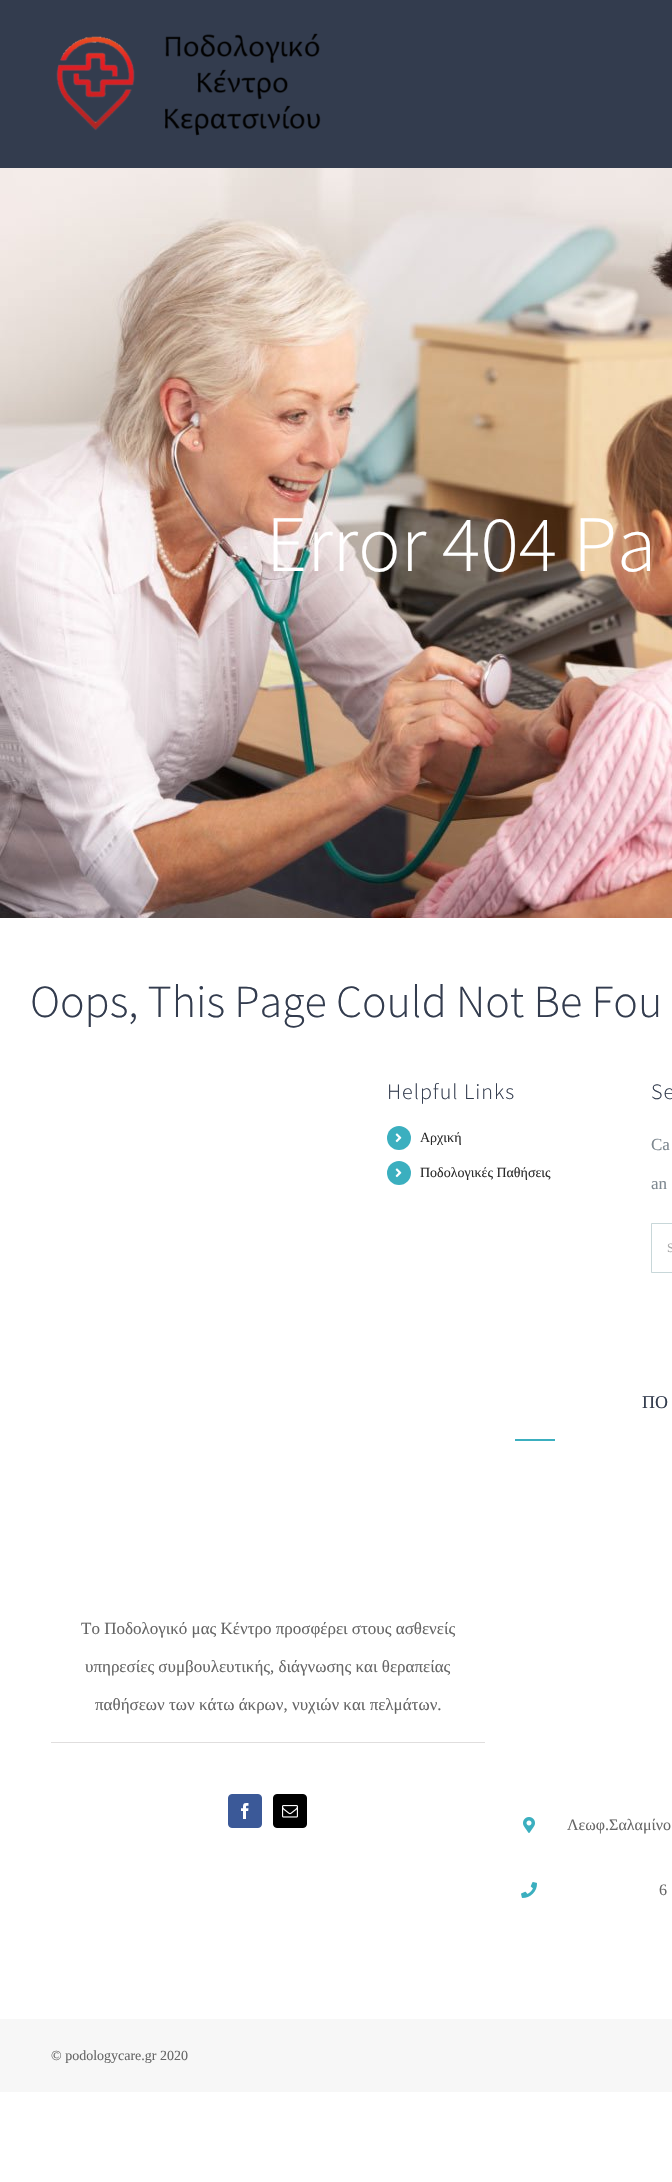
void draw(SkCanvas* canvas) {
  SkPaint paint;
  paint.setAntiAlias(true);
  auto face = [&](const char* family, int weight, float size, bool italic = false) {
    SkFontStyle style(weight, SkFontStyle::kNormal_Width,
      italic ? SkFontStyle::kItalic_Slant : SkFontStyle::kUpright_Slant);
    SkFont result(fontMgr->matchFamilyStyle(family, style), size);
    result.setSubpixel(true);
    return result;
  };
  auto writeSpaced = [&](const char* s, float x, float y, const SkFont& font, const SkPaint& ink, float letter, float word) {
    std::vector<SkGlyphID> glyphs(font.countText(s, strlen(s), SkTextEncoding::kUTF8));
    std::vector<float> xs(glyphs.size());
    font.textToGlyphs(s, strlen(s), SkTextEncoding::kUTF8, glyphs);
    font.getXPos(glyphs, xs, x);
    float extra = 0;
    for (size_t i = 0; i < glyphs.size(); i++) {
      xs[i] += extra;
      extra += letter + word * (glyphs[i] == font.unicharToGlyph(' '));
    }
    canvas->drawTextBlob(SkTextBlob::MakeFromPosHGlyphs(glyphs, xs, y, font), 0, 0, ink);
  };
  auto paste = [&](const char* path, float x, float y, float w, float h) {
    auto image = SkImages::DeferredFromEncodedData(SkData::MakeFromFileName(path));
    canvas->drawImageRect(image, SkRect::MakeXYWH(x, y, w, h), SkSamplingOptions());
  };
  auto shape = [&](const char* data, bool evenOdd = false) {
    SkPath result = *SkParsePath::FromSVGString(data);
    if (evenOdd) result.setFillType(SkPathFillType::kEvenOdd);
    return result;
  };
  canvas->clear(0xffffffff);
  paint.setColor(0xff333c4e);
  canvas->drawRect(SkRect::MakeXYWH(0, 0, 672, 168), paint);
  paste("img/1.png", 56, 33, 265, 103);
  paste("img/2.png", 0, 168, 672, 750);
  paint.setColor(0xff3bafbf);
  canvas->drawCircle(399, 1138, 12, paint);
  paste("img/3.png", 395, 1133, 7, 10);
  canvas->drawCircle(399, 1173, 12, paint);
  paste("img/3.png", 395, 1168, 7, 10);
  paint.setColor(0xffc8d7d9);
  canvas->drawPath(shape("M651 1223H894V1224H652ZM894 1273H651L652 1272H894Z"), paint);
  paint.setColor(0xc4b7cbce);
  canvas->drawPath(shape("M651 1273V1223L652 1224V1272Z"), paint);
  paint.setColor(0xffe0dede);
  canvas->drawRect(SkRect::MakeXYWH(51, 1742, 434, 1), paint);
  paint.setColor(0xff3b5998);
  canvas->drawRoundRect(SkRect::MakeXYWH(228.5f, 1794.5f, 33, 33), 3.5f, 3.5f, paint);
  paint.setStroke(true);
  paint.setStrokeWidth(1);
  canvas->drawRoundRect(SkRect::MakeXYWH(228.5f, 1794.5f, 33, 33), 3.5f, 3.5f, paint);
  paste("img/4.png", 241, 1803, 8, 16);
  paint.setStroke(false);
  paint.setColor(0xff000000);
  canvas->drawRoundRect(SkRect::MakeXYWH(273.5f, 1794.5f, 33, 33), 3.5f, 3.5f, paint);
  paint.setStroke(true);
  canvas->drawRoundRect(SkRect::MakeXYWH(273.5f, 1794.5f, 33, 33), 3.5f, 3.5f, paint);
  paste("img/5.png", 282, 1805, 16, 13);
  paint.setStroke(false);
  paint.setColor(0xff3bafbf);
  canvas->drawRect(SkRect::MakeXYWH(515, 1439, 40, 2), paint);
  paste("img/6.png", 523, 1817, 12, 16);
  paste("img/7.png", 521, 1882, 16, 16);
  paint.setColor(0xfff7f7f7);
  canvas->drawRect(SkRect::MakeXYWH(0, 2019, 672, 73), paint);
  auto f0 = face("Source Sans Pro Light", 300, 80);
  paint.setColor(0xffffffff);
  canvas->drawString("Error 404 Pa", 266, 571, f0, paint);
  auto f1 = face("Source Sans Pro Light", 300, 46);
  paint.setColor(0xff333c4e);
  canvas->drawString("Oops, This Page Could Not Be Fou", 30, 1017, f1, paint);
  auto f2 = face("Source Sans Pro Light", 300, 22);
  writeSpaced("Helpful Links", 387, 1099, f2, paint, 1, 0);
  auto f3 = face("Liberation Serif", 400, 14);
  paint.setColor(0xff2b2b2b);
  canvas->drawString("Αρχική", 420, 1142, f3, paint);
  canvas->drawString("Ποδολογικές Παθήσεις", 420, 1177, f3, paint);
  paint.setColor(0xff333c4e);
  writeSpaced("Se", 651, 1099, f2, paint, 1, 0);
  auto f4 = face("Liberation Serif", 400, 17);
  paint.setColor(0xff7e8890);
  canvas->drawString("Ca", 651, 1150, f4, paint);
  canvas->drawString("an", 651, 1189, f4, paint);
  auto f5 = face("Liberation Serif", 400, 13);
  paint.setColor(0xffaaa9a9);
  canvas->drawString("S", 667, 1252, f5, paint);
  paint.setColor(0xff666666);
  {
    const struct { const char* s; float x, y; } items[] = {
      {"Το Ποδολογικό μας Κέντρο προσφέρει στους ασθενείς", 81, 1634},
      {"υπηρεσίες συμβουλευτικής, διάγνωσης και θεραπείας", 85, 1672},
      {"παθήσεων των κάτω άκρων, νυχιών και πελμάτων.", 95, 1710},
    };
    for (auto [s, x, y] : items) {
      canvas->drawString(s, x, y, f4, paint);
    }
  }
  auto f6 = face("Liberation Serif", 400, 18);
  paint.setColor(0xff333c4e);
  canvas->drawString("ΠΟ", 642, 1408, f6, paint);
  auto f7 = face("Liberation Serif", 400, 16);
  paint.setColor(0xff666666);
  canvas->drawString("Λεωφ.Σαλαμίνο", 567, 1830, f7, paint);
  canvas->drawString("6", 659, 1895, f7, paint);
  canvas->drawString("© podologycare.gr 2020", 51, 2060, f3, paint);
}
